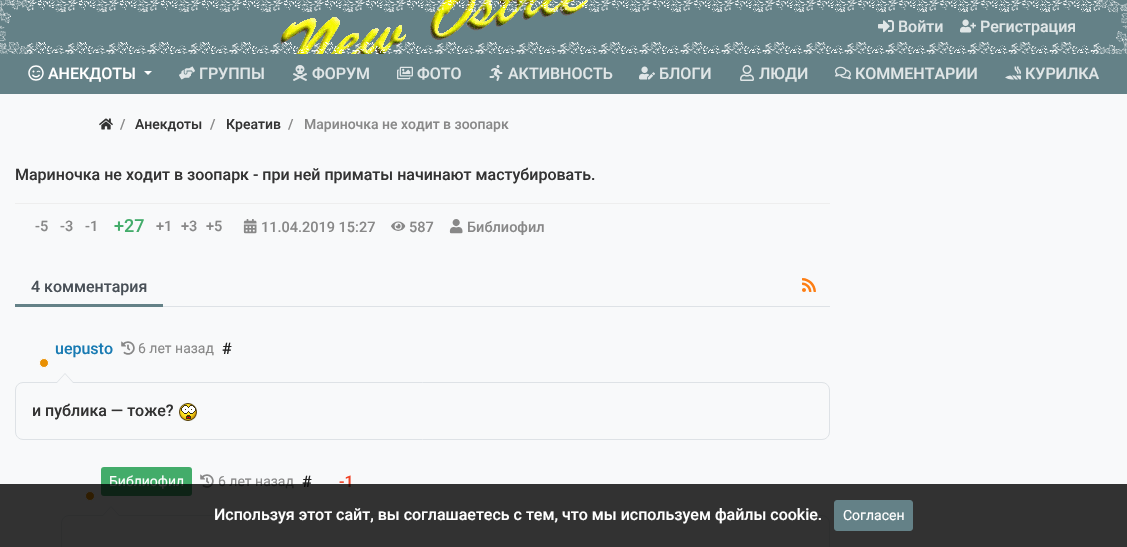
void draw(SkCanvas* canvas) {
  SkPaint paint;
  paint.setAntiAlias(true);
  auto face = [&](const char* family, int weight, float size, bool italic = false) {
    SkFontStyle style(weight, SkFontStyle::kNormal_Width,
      italic ? SkFontStyle::kItalic_Slant : SkFontStyle::kUpright_Slant);
    SkFont result(fontMgr->matchFamilyStyle(family, style), size);
    result.setSubpixel(true);
    return result;
  };
  auto paste = [&](const char* path, float x, float y, float w, float h) {
    auto image = SkImages::DeferredFromEncodedData(SkData::MakeFromFileName(path));
    canvas->drawImageRect(image, SkRect::MakeXYWH(x, y, w, h), SkSamplingOptions());
  };
  auto shape = [&](const char* data, bool evenOdd = false) {
    SkPath result = *SkParsePath::FromSVGString(data);
    if (evenOdd) result.setFillType(SkPathFillType::kEvenOdd);
    return result;
  };
  canvas->clear(0xfff8f9fa);
  paint.setColor(0xff648187);
  canvas->drawRect(SkRect::MakeXYWH(0, 0, 1127, 94), paint);
  paste("img/1.png", 280, 0, 308, 54);
  paste("img/2.png", 0, 0, 1127, 54);
  paste("img/3.png", 878, 20, 16, 13);
  paste("img/4.png", 960, 19, 16, 14);
  paste("img/5.png", 28, 65, 16, 16);
  paint.setColor(0xffffffff);
  canvas->drawPath(shape("M144 71H152L148 75Z"), paint);
  paste("img/6.png", 179, 66, 16, 14);
  paste("img/7.png", 293, 65, 14, 16);
  paste("img/8.png", 397, 66, 16, 14);
  paste("img/9.png", 489, 65, 14, 16);
  paste("img/10.png", 639, 66, 16, 14);
  paste("img/11.png", 740, 65, 14, 16);
  paste("img/12.png", 835, 66, 16, 14);
  paste("img/13.png", 1005, 66, 16, 14);
  paste("img/14.png", 99, 118, 14, 12);
  paint.setColor(0xffeeeeee);
  canvas->drawRect(SkRect::MakeXYWH(15, 203, 815, 1), paint);
  paste("img/15.png", 243, 219, 14, 15);
  paste("img/16.png", 391, 221, 15, 10);
  paste("img/17.png", 449, 219, 14, 15);
  paint.setColor(0xffdee2e6);
  canvas->drawRect(SkRect::MakeXYWH(163, 306, 667, 1), paint);
  paint.setColor(0xff648187);
  canvas->drawRect(SkRect::MakeXYWH(15, 304, 148, 3), paint);
  paste("img/18.png", 802, 278, 14, 14);
  paste("img/19.png", 121, 341, 14, 14);
  paint.setColor(0xffe99002);
  canvas->drawCircle(44, 363, 4.5f, paint);
  paint.setStroke(true);
  paint.setStrokeWidth(1);
  paint.setColor(0xffffffff);
  canvas->drawCircle(44, 363, 4.5f, paint);
  paint.setColor(0xffdee2e6);
  canvas->drawRoundRect(SkRect::MakeXYWH(15.5f, 382.5f, 814, 57), 7.5f, 7.5f, paint);
  paint.setStroke(false);
  canvas->drawPath(shape("M65 373L56 383H74Z"), paint);
  paint.setColor(0xfff8f9fa);
  canvas->drawPath(shape("M65 374L56 384H74Z"), paint);
  paste("img/20.png", 179, 403, 18, 18);
  paint.setColor(0xff43ac6a);
  canvas->drawRoundRect(SkRect::MakeXYWH(101, 467, 91, 29), 3, 3, paint);
  paste("img/19.png", 200, 474, 14, 14);
  paint.setColor(0xffe99002);
  canvas->drawCircle(90, 496, 4.5f, paint);
  paint.setStroke(true);
  paint.setColor(0xffffffff);
  canvas->drawCircle(90, 496, 4.5f, paint);
  paint.setColor(0xffe3e7ea);
  canvas->drawRoundRect(SkRect::MakeXYWH(61.5f, 515.5f, 768, 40), 7.5f, 7.5f, paint);
  paint.setStroke(false);
  canvas->drawPath(shape("M111 506L102 516H120Z"), paint);
  paint.setColor(0xfff8f9fa);
  canvas->drawPath(shape("M111 507L102 517H120Z"), paint);
  auto f0 = face("Roboto", 500, 16);
  paint.setColor(0xffe0e6e7);
  canvas->drawString("Войти", 898, 32, f0, paint);
  canvas->drawString("Регистрация", 980, 32, f0, paint);
  paint.setColor(0xffffffff);
  canvas->drawString("АНЕКДОТЫ", 48, 79, f0, paint);
  paint.setColor(0xffe0e6e7);
  {
    const struct { const char* s; float x, y; } items[] = {
      {"ГРУППЫ", 199, 79},
      {"ФОРУМ", 312, 79},
      {"ФОТО", 417, 79},
      {"АКТИВНОСТЬ", 508, 79},
      {"БЛОГИ", 659, 79},
      {"ЛЮДИ", 759, 79},
      {"КОММЕНТАРИИ", 855, 79},
      {"КУРИЛКА", 1025, 79},
    };
    for (auto [s, x, y] : items) {
      canvas->drawString(s, x, y, f0, paint);
    }
  }
  auto f1 = face("Roboto", 500, 14);
  paint.setColor(0xff888888);
  canvas->drawString("/", 120, 129, f1, paint);
  paint.setColor(0xff333333);
  canvas->drawString("Анекдоты", 135, 129, f1, paint);
  paint.setColor(0xff888888);
  canvas->drawString("/", 210, 129, f1, paint);
  paint.setColor(0xff333333);
  canvas->drawString("Креатив", 226, 129, f1, paint);
  paint.setColor(0xff888888);
  canvas->drawString("/", 288, 129, f1, paint);
  canvas->drawString("Мариночка не ходит в зоопарк", 304, 129, f1, paint);
  paint.setColor(0xff333333);
  canvas->drawString("Мариночка не ходит в зоопарк - при ней приматы начинают мастубировать.", 15, 180, f0, paint);
  auto f2 = face("Roboto", 500, 14.5f);
  paint.setColor(0xff888888);
  {
    const struct { const char* s; float x, y; } items[] = {
      {"-5", 35, 231},
      {"-3", 60, 231},
      {"-1", 85, 231},
    };
    for (auto [s, x, y] : items) {
      canvas->drawString(s, x, y, f2, paint);
    }
  }
  auto f3 = face("Roboto", 500, 18);
  paint.setColor(0xff43ac6a);
  canvas->drawString("+27", 114, 232, f3, paint);
  paint.setColor(0xff888888);
  {
    const struct { const char* s; float x, y; } items[] = {
      {"+1", 156, 231},
      {"+3", 181, 231},
      {"+5", 206, 231},
      {"11.04.2019 15:27", 261, 232},
      {"587", 409, 232},
      {"Библиофил", 467, 232},
    };
    for (auto [s, x, y] : items) {
      canvas->drawString(s, x, y, f2, paint);
    }
  }
  paint.setColor(0xff495057);
  canvas->drawString("4 комментария", 31, 292, f0, paint);
  paint.setColor(0xff197bb3);
  canvas->drawString("uepusto", 55, 354, f0, paint);
  auto f4 = face("Roboto", 400, 14);
  paint.setColor(0xff888888);
  canvas->drawString("6 лет назад", 138, 353, f4, paint);
  paint.setColor(0xff222222);
  canvas->drawString("#", 222, 354, f0, paint);
  paint.setColor(0xff333333);
  canvas->drawString("и публика — тоже?", 32, 416, f0, paint);
  paint.setColor(0xffffffff);
  canvas->drawString("Библиофил", 109, 486, f4, paint);
  paint.setColor(0xff888888);
  canvas->drawString("6 лет назад", 218, 486, f4, paint);
  paint.setColor(0xff222222);
  canvas->drawString("#", 302, 487, f0, paint);
  paint.setColor(0xfff04124);
  canvas->drawString("-1", 339, 487, f0, paint);
  paint.setColor(0xcc000000);
  canvas->drawRect(SkRect::MakeXYWH(0, 484, 1127, 63), paint);
  paint.setColor(0xffffffff);
  canvas->drawString("Используя этот сайт, вы соглашаетесь с тем, что мы используем файлы cookie.", 214, 520, f0, paint);
  paint.setColor(0xff648187);
  canvas->drawRoundRect(SkRect::MakeXYWH(834.5f, 500.5f, 78, 30), 2.5f, 2.5f, paint);
  paint.setStroke(true);
  canvas->drawRoundRect(SkRect::MakeXYWH(834.5f, 500.5f, 78, 30), 2.5f, 2.5f, paint);
  paint.setStroke(false);
  paint.setColor(0xffffffff);
  canvas->drawString("Согласен", 843, 520, f4, paint);
}
